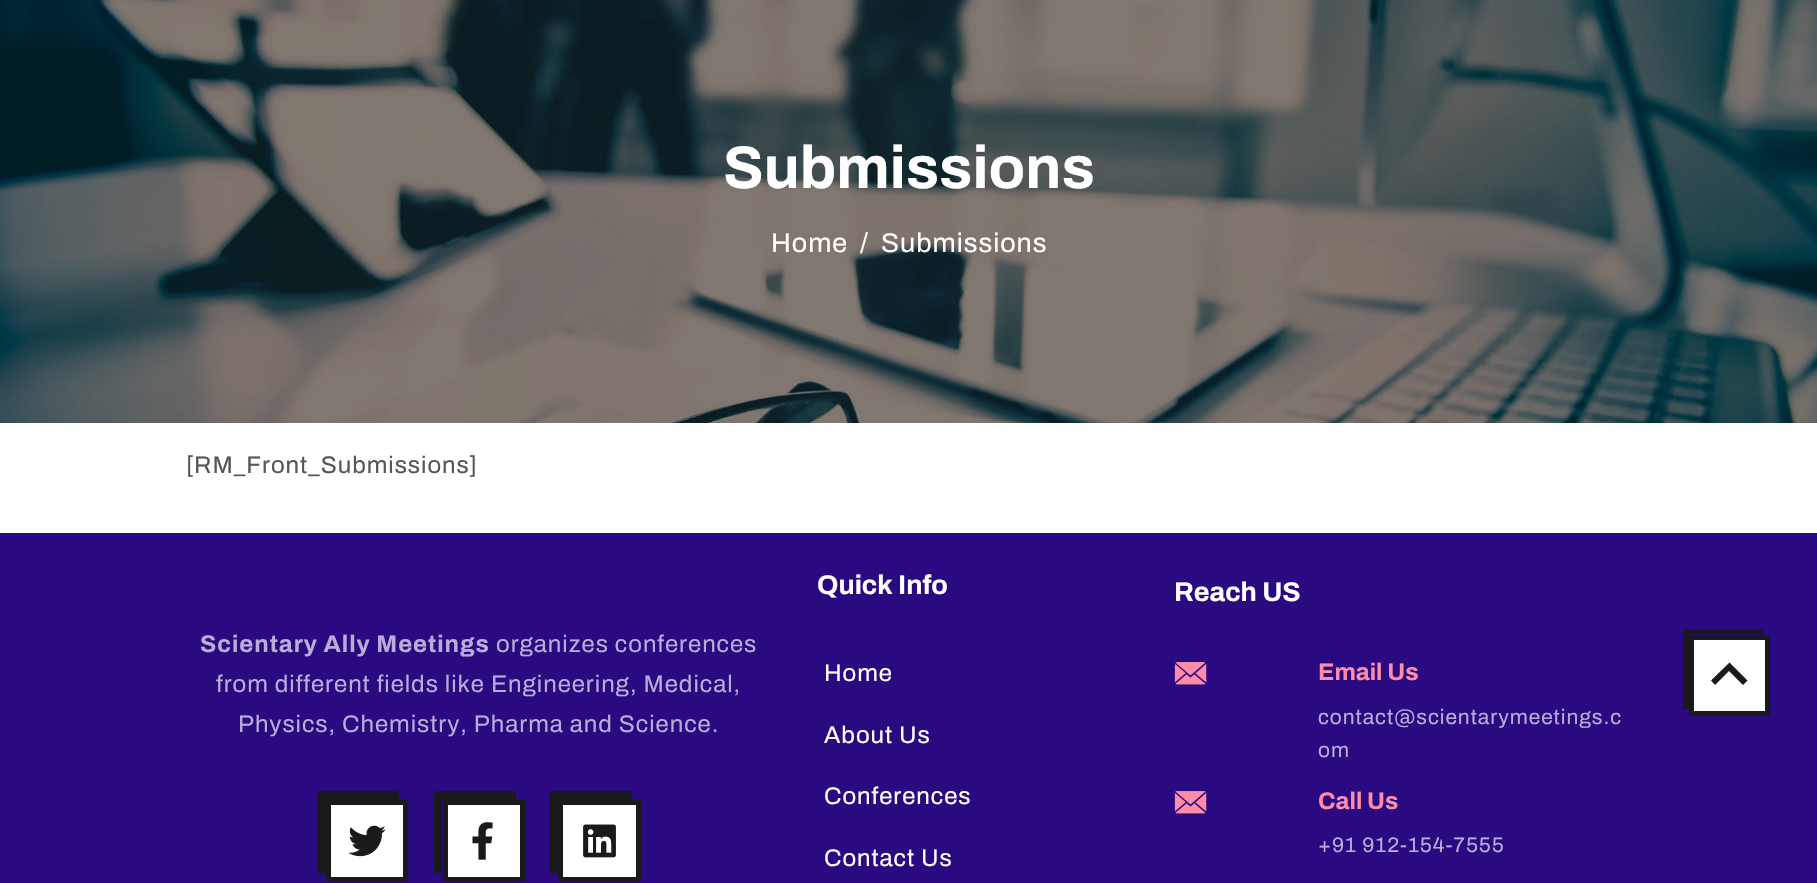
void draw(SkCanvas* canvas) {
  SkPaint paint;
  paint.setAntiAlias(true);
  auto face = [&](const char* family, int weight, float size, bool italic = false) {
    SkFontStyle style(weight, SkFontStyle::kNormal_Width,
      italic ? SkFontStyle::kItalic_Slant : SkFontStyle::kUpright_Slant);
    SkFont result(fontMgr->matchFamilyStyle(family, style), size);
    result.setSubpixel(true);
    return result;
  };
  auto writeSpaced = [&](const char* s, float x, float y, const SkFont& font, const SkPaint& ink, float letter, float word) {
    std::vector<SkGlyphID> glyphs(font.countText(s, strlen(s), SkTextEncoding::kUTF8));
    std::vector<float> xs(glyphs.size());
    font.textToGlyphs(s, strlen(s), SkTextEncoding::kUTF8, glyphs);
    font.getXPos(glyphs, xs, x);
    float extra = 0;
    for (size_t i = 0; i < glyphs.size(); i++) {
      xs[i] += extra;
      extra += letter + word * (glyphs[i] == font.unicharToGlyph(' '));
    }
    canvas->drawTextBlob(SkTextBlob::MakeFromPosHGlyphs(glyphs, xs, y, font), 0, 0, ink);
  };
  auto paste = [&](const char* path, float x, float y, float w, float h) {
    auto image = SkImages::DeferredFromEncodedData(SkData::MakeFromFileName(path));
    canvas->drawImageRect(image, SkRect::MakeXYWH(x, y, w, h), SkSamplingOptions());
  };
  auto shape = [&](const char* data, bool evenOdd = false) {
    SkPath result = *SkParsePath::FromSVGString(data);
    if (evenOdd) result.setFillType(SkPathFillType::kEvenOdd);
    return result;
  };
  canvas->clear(0xffffffff);
  paste("img/1.png", 0, 0, 1817, 423);
  paint.setColor(0xff290a81);
  canvas->drawRect(SkRect::MakeXYWH(0, 533, 1817, 350), paint);
  paint.setColor(0xff1a1a1a);
  canvas->drawPath(shape("M317 791V873H326V800H399V791Z"), paint);
  paint.setColor(0xffffffff);
  canvas->drawRect(SkRect::MakeXYWH(328.5f, 802.5f, 77, 77), paint);
  paint.setStroke(true);
  paint.setStrokeWidth(5);
  paint.setColor(0xff1a1a1a);
  canvas->drawRect(SkRect::MakeXYWH(328.5f, 802.5f, 77, 77), paint);
  paste("img/2.png", 348, 825, 38, 32);
  paint.setStroke(false);
  canvas->drawPath(shape("M434 791V873H442V800H516V791Z"), paint);
  paint.setColor(0xffffffff);
  canvas->drawRect(SkRect::MakeXYWH(445.5f, 802.5f, 77, 77), paint);
  paint.setStroke(true);
  paint.setColor(0xff1a1a1a);
  canvas->drawRect(SkRect::MakeXYWH(445.5f, 802.5f, 77, 77), paint);
  paste("img/3.png", 472, 822, 21, 38);
  paint.setStroke(false);
  canvas->drawPath(shape("M549 791V873H558V800H632V791Z"), paint);
  paint.setColor(0xffffffff);
  canvas->drawRect(SkRect::MakeXYWH(560.5f, 802.5f, 78, 77), paint);
  paint.setStroke(true);
  paint.setColor(0xff1a1a1a);
  canvas->drawRect(SkRect::MakeXYWH(560.5f, 802.5f, 78, 77), paint);
  paste("img/4.png", 583, 824, 33, 34);
  paste("img/5.png", 1174, 662, 33, 23);
  paste("img/5.png", 1174, 791, 33, 23);
  paint.setStroke(false);
  canvas->drawPath(shape("M1683 629V710H1689V634H1764V629Z"), paint);
  paint.setColor(0xffffffff);
  canvas->drawRect(SkRect::MakeXYWH(1691.5f, 637.5f, 76, 76), paint);
  paint.setStroke(true);
  paint.setColor(0xff1a1a1a);
  canvas->drawRect(SkRect::MakeXYWH(1691.5f, 637.5f, 76, 76), paint);
  paint.setStroke(false);
  canvas->drawPath(shape("M1711 680.5L1715 685L1729 671L1743 685L1747.5 680.5L1729.5 662.5Z"), paint);
  auto f0 = face("Archivo", 700, 60);
  paint.setColor(0xffffffff);
  canvas->drawString("Submissions", 723, 188, f0, paint);
  auto f1 = face("Archivo", 400, 27);
  {
    const struct { const char* s; float x, y; } items[] = {
      {"Home", 771, 252},
      {"/", 860, 252},
      {"Submissions", 881, 252},
    };
    for (auto [s, x, y] : items) {
      writeSpaced(s, x, y, f1, paint, 0.95f, 0);
    }
  }
  auto f2 = face("Archivo", 400, 24);
  paint.setColor(0xff565656);
  writeSpaced("[RM_Front_Submissions]", 186, 473, f2, paint, 0.95f, 0);
  auto f3 = face("Archivo", 700, 24);
  paint.setColor(0xffb8acdb);
  writeSpaced("Scientary Ally Meetings", 200, 652, f3, paint, 0.95f, 0);
  {
    const struct { const char* s; float x, y; } items[] = {
      {"organizes conferences", 496, 652},
      {"from different fields like Engineering, Medical,", 216, 692},
      {"Physics, Chemistry, Pharma and Science.", 238, 732},
    };
    for (auto [s, x, y] : items) {
      writeSpaced(s, x, y, f2, paint, 0.95f, 0);
    }
  }
  auto f4 = face("Archivo", 700, 27);
  paint.setColor(0xffffffff);
  canvas->drawString("Quick Info", 817, 594, f4, paint);
  {
    const struct { const char* s; float x, y; } items[] = {
      {"Home", 824, 681},
      {"About Us", 824, 743},
      {"Conferences", 824, 804},
      {"Contact Us", 824, 866},
    };
    for (auto [s, x, y] : items) {
      writeSpaced(s, x, y, f2, paint, 0.95f, 0);
    }
  }
  canvas->drawString("Reach US", 1174, 601, f4, paint);
  paint.setColor(0xffff8ca6);
  canvas->drawString("Email Us", 1318, 680, f3, paint);
  auto f5 = face("Archivo", 400, 21);
  paint.setColor(0xffb8acdb);
  writeSpaced("contact@scientarymeetings.c", 1318, 724, f5, paint, 0.95f, 0);
  writeSpaced("om", 1318, 757, f5, paint, 0.95f, 0);
  paint.setColor(0xffff8ca6);
  canvas->drawString("Call Us", 1318, 809, f3, paint);
  paint.setColor(0xffb8acdb);
  writeSpaced("+91 912-154-7555", 1318, 852, f5, paint, 0.95f, 0);
}
